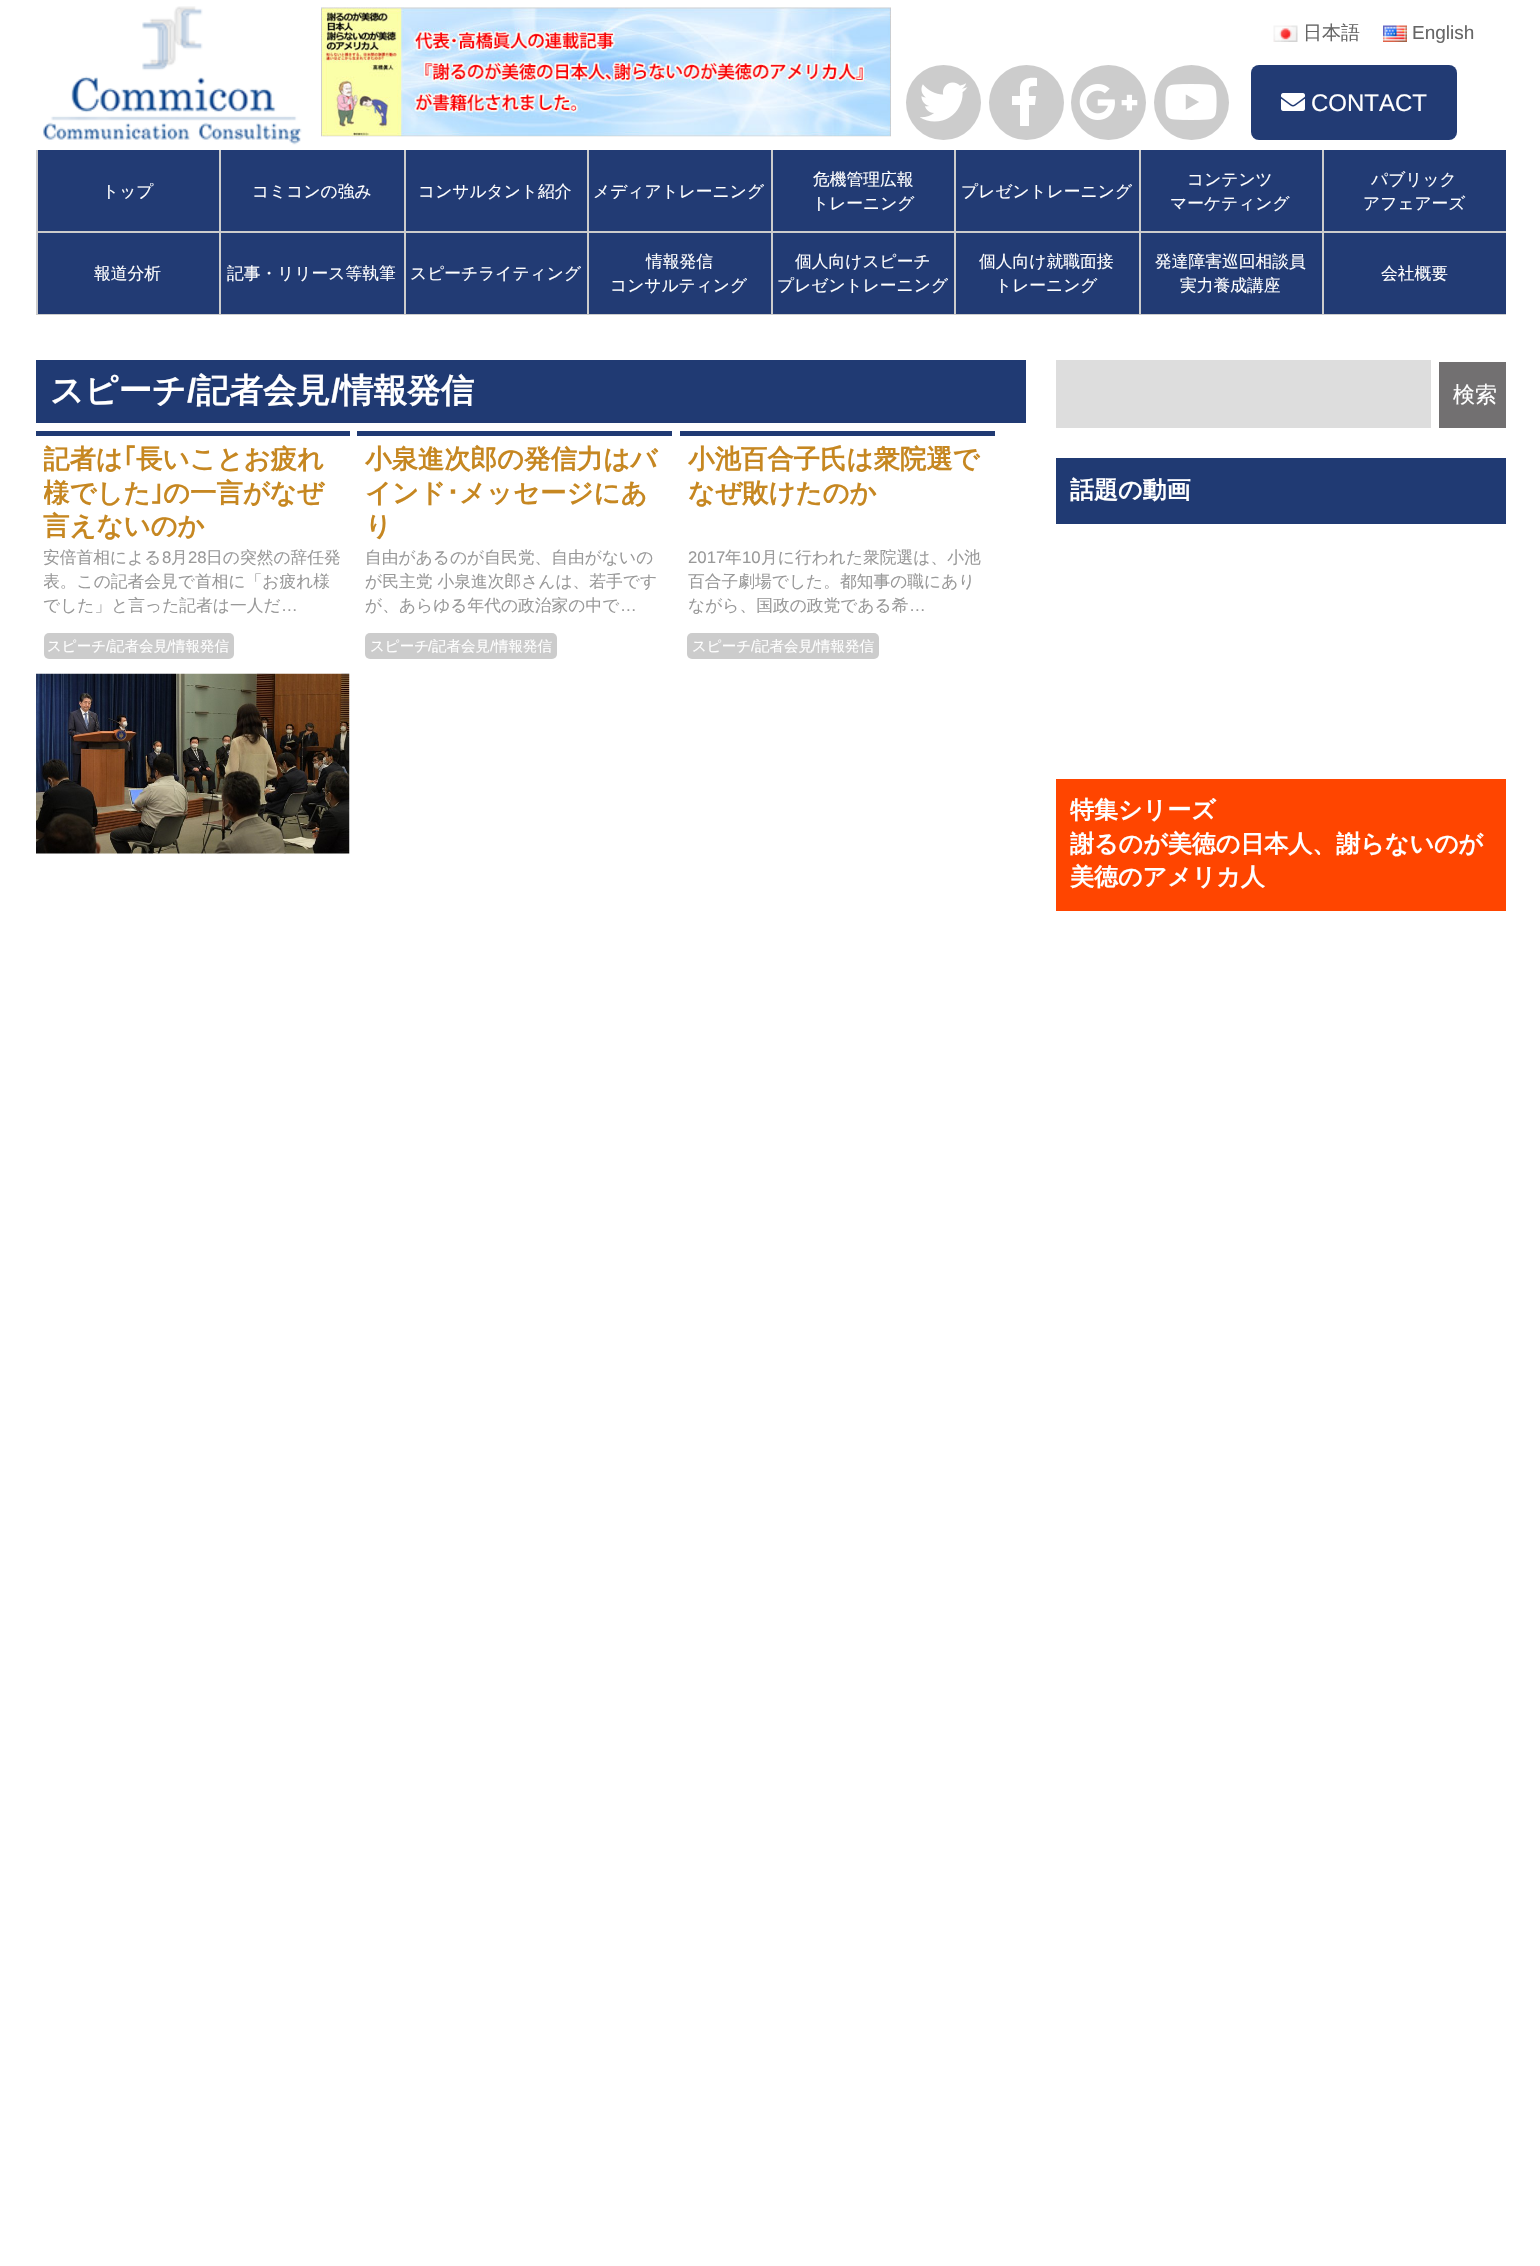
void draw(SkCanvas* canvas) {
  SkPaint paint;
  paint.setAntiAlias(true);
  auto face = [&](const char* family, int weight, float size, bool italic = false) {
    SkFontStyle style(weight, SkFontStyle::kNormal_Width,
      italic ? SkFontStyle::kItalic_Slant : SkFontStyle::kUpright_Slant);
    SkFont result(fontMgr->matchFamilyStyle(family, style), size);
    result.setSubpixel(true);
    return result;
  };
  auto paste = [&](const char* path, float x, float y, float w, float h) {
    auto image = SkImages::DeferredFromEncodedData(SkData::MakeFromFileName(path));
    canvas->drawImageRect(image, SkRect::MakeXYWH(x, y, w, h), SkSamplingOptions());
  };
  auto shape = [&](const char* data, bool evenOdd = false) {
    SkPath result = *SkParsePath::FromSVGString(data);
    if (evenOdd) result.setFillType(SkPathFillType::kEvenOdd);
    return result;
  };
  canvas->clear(0xffffffff);
  paste("img/1.png", 43, 6, 259, 139);
  paste("img/2.png", 321, 7, 570, 130);
  paste("img/3.png", 1273, 25, 25, 17);
  paste("img/4.png", 1383, 25, 24, 17);
  paint.setColor(0xffcccccc);
  canvas->drawCircle(943.5f, 102.5f, 37.5f, paint);
  paste("img/5.png", 920, 82, 48, 40);
  canvas->drawCircle(1026.5f, 102.5f, 37.5f, paint);
  paint.setColor(0xffffffff);
  canvas->drawPath(shape("M1020 126V105H1012V96H1020V87C1021 78 1030 77 1037 78V86C1027 86 1029 87 1029 96H1036L1035 105H1029V126Z"), paint);
  paint.setColor(0xffcccccc);
  canvas->drawCircle(1108.5f, 102.5f, 37.5f, paint);
  paste("img/6.png", 1079, 84, 59, 36);
  canvas->drawCircle(1191.5f, 102.5f, 37.5f, paint);
  paste("img/7.png", 1165, 84, 52, 36);
  paint.setColor(0xff223b74);
  canvas->drawRoundRect(SkRect::MakeXYWH(1251, 65, 206, 75), 8, 8, paint);
  paste("img/8.png", 1281, 93, 24, 18);
  {
    const struct { float x, y, w, h; SkColor color; } items[] = {
      {38, 150, 1468, 164, 0xff223b74},
      {36, 231, 1470, 2, 0xffcccccc},
      {36, 150, 2, 83, 0xffcccccc},
      {219, 150, 2, 83, 0xffcccccc},
      {404, 150, 2, 83, 0xffcccccc},
      {587, 150, 2, 83, 0xffcccccc},
      {771, 150, 2, 83, 0xffcccccc},
      {954, 150, 2, 83, 0xffcccccc},
      {1139, 150, 2, 83, 0xffcccccc},
      {1322, 150, 2, 83, 0xffcccccc},
      {36, 314, 1470, 1, 0xffcccccc},
      {36, 233, 2, 82, 0xffcccccc},
      {219, 233, 2, 82, 0xffcccccc},
      {404, 233, 2, 82, 0xffcccccc},
      {587, 233, 2, 82, 0xffcccccc},
      {771, 233, 2, 82, 0xffcccccc},
      {954, 233, 2, 82, 0xffcccccc},
      {1139, 233, 2, 82, 0xffcccccc},
      {1322, 233, 2, 82, 0xffcccccc},
      {36, 360, 990, 63, 0xff203a73},
      {36, 431, 314, 5, 0xff203a73},
    };
    for (auto [x, y, w, h, color] : items) {
      paint.setColor(color);
      canvas->drawRect(SkRect::MakeXYWH(x, y, w, h), paint);
    }
  }
  paint.setColor(0xffcccccc);
  canvas->drawRoundRect(SkRect::MakeXYWH(44, 633, 190, 26), 5, 5, paint);
  paste("img/9.png", 36, 673, 314, 181);
  paint.setColor(0xff203a73);
  canvas->drawRect(SkRect::MakeXYWH(357, 431, 315, 5), paint);
  paint.setColor(0xffcccccc);
  canvas->drawRoundRect(SkRect::MakeXYWH(365, 633, 192, 26), 5, 5, paint);
  paint.setColor(0xff203a73);
  canvas->drawRect(SkRect::MakeXYWH(680, 431, 315, 5), paint);
  paint.setColor(0xffcccccc);
  canvas->drawRoundRect(SkRect::MakeXYWH(687, 633, 192, 26), 5, 5, paint);
  {
    const struct { float x, y, w, h; SkColor color; } items[] = {
      {1056, 360, 375, 68, 0xffdddddd},
      {1439, 362, 67, 66, 0xff727071},
      {1056, 458, 450, 66, 0xff203a73},
      {1056, 779, 450, 132, 0xffff4500},
    };
    for (auto [x, y, w, h, color] : items) {
      paint.setColor(color);
      canvas->drawRect(SkRect::MakeXYWH(x, y, w, h), paint);
    }
  }
  auto f0 = face("WenQuanYi Zen Hei", 500, 19);
  paint.setColor(0xff666666);
  canvas->drawString("日本語", 1303, 39, f0, paint);
  auto f1 = face("Liberation Sans", 400, 19);
  canvas->drawString("English", 1412, 39, f1, paint);
  auto f2 = face("Liberation Sans", 400, 24);
  paint.setColor(0xffffffff);
  canvas->drawString("CONTACT", 1311, 111, f2, paint);
  auto f3 = face("WenQuanYi Zen Hei", 500, 16.75f);
  {
    const struct { const char* s; float x, y; } items[] = {
      {"トップ", 102, 197},
      {"コミコンの強み", 252, 197},
      {"コンサルタント紹介", 418, 197},
      {"メディアトレーニング", 593, 197},
      {"危機管理広報", 813, 185},
      {"トレーニング", 812, 209},
      {"プレゼントレーニング", 961, 197},
      {"コンテンツ", 1187, 185},
      {"マーケティング", 1170, 209},
      {"パブリック", 1371, 185},
      {"アフェアーズ", 1363, 209},
      {"報道分析", 94, 279},
      {"記事・リリース等執筆", 227, 279},
      {"スピーチライティング", 410, 279},
      {"情報発信", 646, 267},
      {"コンサルティング", 610, 291},
      {"個人向けスピーチ", 795, 267},
      {"プレゼントレーニング", 777, 291},
      {"個人向け就職面接", 979, 267},
      {"トレーニング", 995, 291},
      {"発達障害巡回相談員", 1155, 267},
      {"実力養成講座", 1180, 291},
      {"会社概要", 1381, 279},
    };
    for (auto [s, x, y] : items) {
      canvas->drawString(s, x, y, f3, paint);
    }
  }
  auto f4 = face("WenQuanYi Zen Hei", 700, 33.5f);
  canvas->drawString("スピーチ", 50, 402, f4, paint);
  auto f5 = face("Liberation Sans", 700, 33.5f);
  canvas->drawString("/", 187, 402, f5, paint);
  canvas->drawString("記者会見", 196, 402, f4, paint);
  canvas->drawString("/", 331, 402, f5, paint);
  canvas->drawString("情報発信", 340, 402, f4, paint);
  canvas->save();
  canvas->clipRect(SkRect::MakeXYWH(44, 443, 298, 97));
  auto f6 = face("WenQuanYi Zen Hei", 700, 26.4f);
  paint.setColor(0xffc68721);
  canvas->drawString("記者は", 43, 468, f6, paint);
  canvas->restore();
  auto f7 = face("IPAGothic", 700, 26.4f);
  canvas->drawString("｢", 123, 468, f7, paint);
  canvas->drawString("長いことお疲れ", 136, 468, f6, paint);
  canvas->save();
  canvas->clipRect(SkRect::MakeXYWH(44, 443, 298, 97));
  canvas->drawString("様でした", 43, 502, f6, paint);
  canvas->restore();
  canvas->drawString("｣", 150, 502, f7, paint);
  canvas->drawString("の一言がなぜ", 163, 502, f6, paint);
  canvas->drawString("言えないのか", 43, 535, f6, paint);
  canvas->save();
  canvas->clipRect(SkRect::MakeXYWH(44, 545, 298, 75));
  paint.setColor(0xff999999);
  canvas->drawString("安倍首相による", 43, 563, f3, paint);
  canvas->restore();
  auto f8 = face("Liberation Sans", 400, 16.75f);
  canvas->drawString("8", 162, 563, f8, paint);
  canvas->drawString("月", 171, 563, f3, paint);
  canvas->drawString("28", 188, 563, f8, paint);
  canvas->drawString("日の突然の辞任発", 206, 563, f3, paint);
  canvas->save();
  canvas->clipRect(SkRect::MakeXYWH(44, 545, 298, 75));
  canvas->drawString("表。この記者会見で首相に「お疲れ様", 43, 587, f3, paint);
  canvas->restore();
  canvas->drawString("でした」と言った記者は一人だ", 43, 611, f3, paint);
  canvas->drawString("…", 281, 611, f8, paint);
  auto f9 = face("WenQuanYi Zen Hei", 500, 14.5f);
  paint.setColor(0xffffffff);
  canvas->drawString("スピーチ", 47, 651, f9, paint);
  auto f10 = face("Liberation Sans", 400, 14.5f);
  canvas->drawString("/", 106, 651, f10, paint);
  canvas->drawString("記者会見", 110, 651, f9, paint);
  canvas->drawString("/", 167, 651, f10, paint);
  canvas->drawString("情報発信", 171, 651, f9, paint);
  paint.setColor(0xffc68721);
  canvas->drawString("小泉進次郎の発信力はバ", 365, 468, f6, paint);
  canvas->drawString("インド", 365, 502, f6, paint);
  canvas->drawString("･", 446, 502, f7, paint);
  canvas->drawString("メッセージにあ", 459, 502, f6, paint);
  canvas->drawString("り", 365, 535, f6, paint);
  paint.setColor(0xff999999);
  {
    const struct { const char* s; float x, y; } items[] = {
      {"自由があるのが自民党、自由がないの", 365, 563},
      {"が民主党 小泉進次郎さんは、若手です", 365, 587},
      {"が、あらゆる年代の政治家の中で", 365, 611},
    };
    for (auto [s, x, y] : items) {
      canvas->drawString(s, x, y, f3, paint);
    }
  }
  canvas->drawString("…", 620, 611, f8, paint);
  paint.setColor(0xffffffff);
  canvas->drawString("スピーチ", 370, 651, f9, paint);
  canvas->drawString("/", 428, 651, f10, paint);
  canvas->drawString("記者会見", 432, 651, f9, paint);
  canvas->drawString("/", 490, 651, f10, paint);
  canvas->drawString("情報発信", 494, 651, f9, paint);
  paint.setColor(0xffc68721);
  canvas->drawString("小池百合子氏は衆院選で", 688, 468, f6, paint);
  canvas->drawString("なぜ敗けたのか", 688, 502, f6, paint);
  paint.setColor(0xff999999);
  canvas->drawString("2017", 688, 563, f8, paint);
  canvas->drawString("年", 725, 563, f3, paint);
  canvas->drawString("10", 742, 563, f8, paint);
  {
    const struct { const char* s; float x, y; } items[] = {
      {"月に行われた衆院選は、小池", 761, 563},
      {"百合子劇場でした。都知事の職にあり", 688, 587},
      {"ながら、国政の政党である希", 688, 611},
    };
    for (auto [s, x, y] : items) {
      canvas->drawString(s, x, y, f3, paint);
    }
  }
  canvas->drawString("…", 909, 611, f8, paint);
  paint.setColor(0xffffffff);
  canvas->drawString("スピーチ", 692, 651, f9, paint);
  canvas->drawString("/", 751, 651, f10, paint);
  canvas->drawString("記者会見", 755, 651, f9, paint);
  canvas->drawString("/", 812, 651, f10, paint);
  canvas->drawString("情報発信", 816, 651, f9, paint);
  auto f11 = face("WenQuanYi Zen Hei", 500, 22);
  canvas->drawString("検索", 1453, 402, f11, paint);
  auto f12 = face("WenQuanYi Zen Hei", 700, 24);
  {
    const struct { const char* s; float x, y; } items[] = {
      {"話題の動画", 1070, 498},
      {"特集シリーズ", 1070, 818},
      {"謝るのが美徳の日本人、謝らないのが", 1070, 852},
      {"美徳のアメリカ人", 1070, 885},
    };
    for (auto [s, x, y] : items) {
      canvas->drawString(s, x, y, f12, paint);
    }
  }
}
